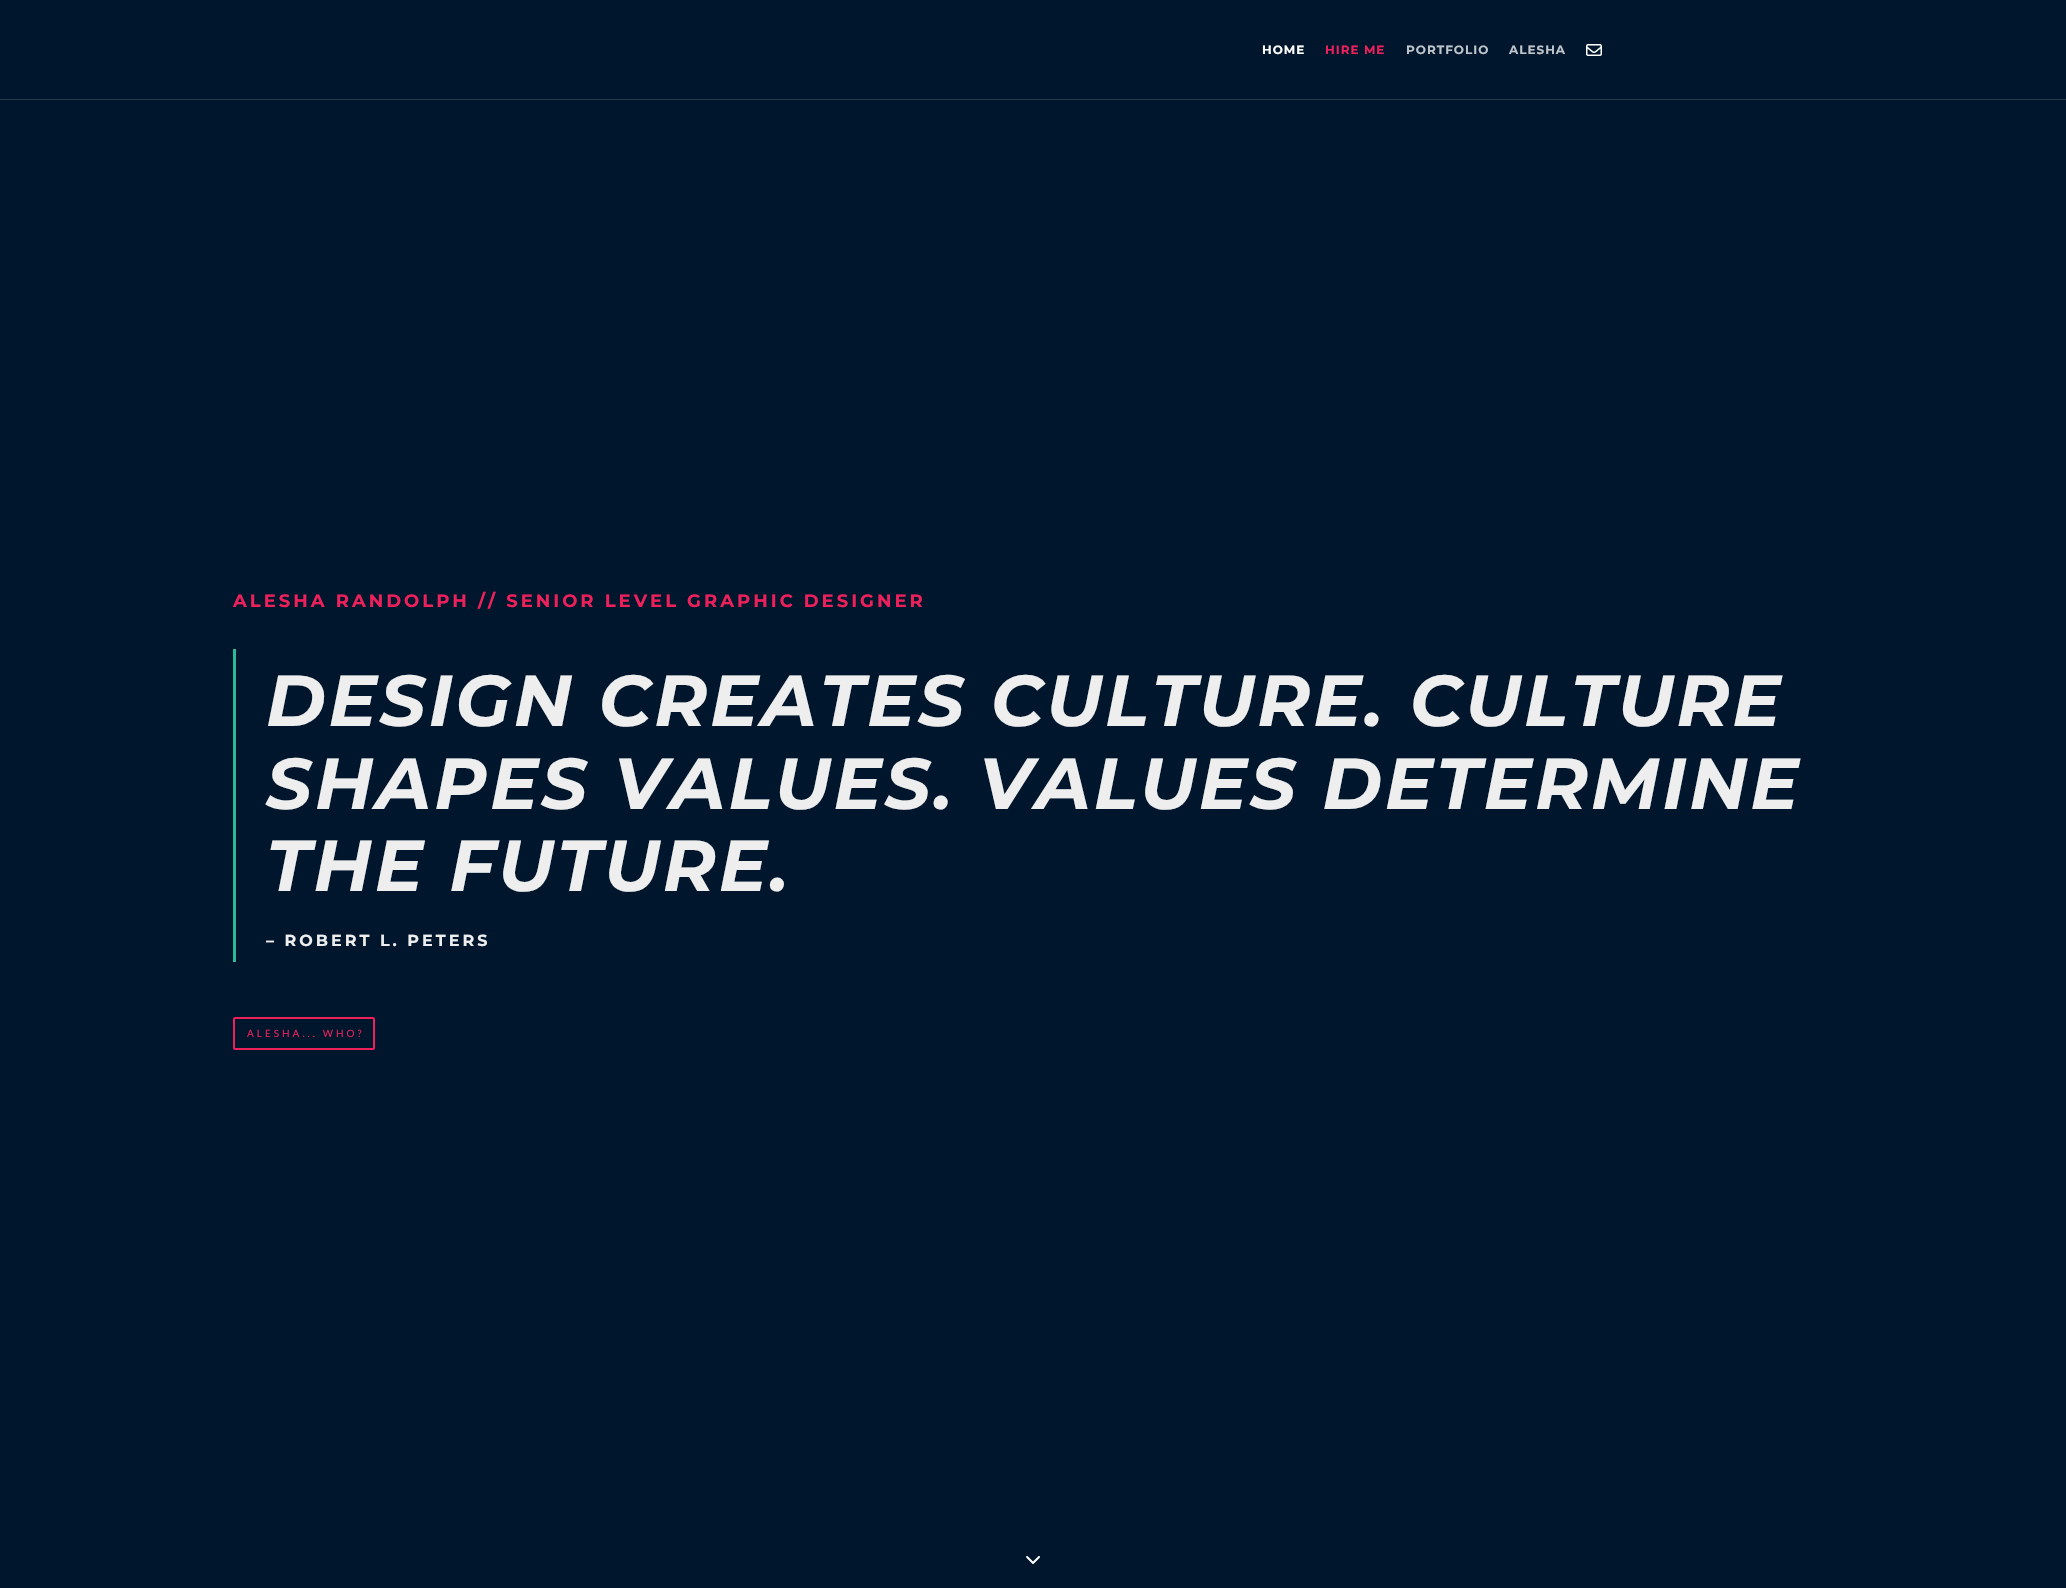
void draw(SkCanvas* canvas) {
  SkPaint paint;
  paint.setAntiAlias(true);
  auto face = [&](const char* family, int weight, float size, bool italic = false) {
    SkFontStyle style(weight, SkFontStyle::kNormal_Width,
      italic ? SkFontStyle::kItalic_Slant : SkFontStyle::kUpright_Slant);
    SkFont result(fontMgr->matchFamilyStyle(family, style), size);
    result.setSubpixel(true);
    return result;
  };
  auto writeSpaced = [&](const char* s, float x, float y, const SkFont& font, const SkPaint& ink, float letter, float word) {
    std::vector<SkGlyphID> glyphs(font.countText(s, strlen(s), SkTextEncoding::kUTF8));
    std::vector<float> xs(glyphs.size());
    font.textToGlyphs(s, strlen(s), SkTextEncoding::kUTF8, glyphs);
    font.getXPos(glyphs, xs, x);
    float extra = 0;
    for (size_t i = 0; i < glyphs.size(); i++) {
      xs[i] += extra;
      extra += letter + word * (glyphs[i] == font.unicharToGlyph(' '));
    }
    canvas->drawTextBlob(SkTextBlob::MakeFromPosHGlyphs(glyphs, xs, y, font), 0, 0, ink);
  };
  auto paste = [&](const char* path, float x, float y, float w, float h) {
    auto image = SkImages::DeferredFromEncodedData(SkData::MakeFromFileName(path));
    canvas->drawImageRect(image, SkRect::MakeXYWH(x, y, w, h), SkSamplingOptions());
  };
  canvas->clear(0xff00162d);
  paint.setColor(0xff26394d);
  canvas->drawRect(SkRect::MakeXYWH(0, 99, 2066, 1), paint);
  paste("img/1.png", 1586, 44, 16, 12);
  paint.setColor(0xff2abb9b);
  canvas->drawRect(SkRect::MakeXYWH(233, 649, 3, 313), paint);
  paint.setStroke(true);
  paint.setStrokeWidth(2);
  paint.setColor(0xffee205c);
  canvas->drawRoundRect(SkRect::MakeXYWH(234, 1018, 140, 31), 1, 1, paint);
  paste("img/2.png", 1026, 1556, 14, 8);
  auto f0 = face("Montserrat", 700, 12);
  paint.setStroke(false);
  paint.setColor(0xffffffff);
  writeSpaced("HOME", 1262, 54, f0, paint, 1, 0);
  paint.setColor(0xffee205c);
  writeSpaced("HIRE ME", 1325, 54, f0, paint, 1, 0);
  paint.setColor(0xffbfc5cb);
  writeSpaced("PORTFOLIO", 1406, 54, f0, paint, 1, 0);
  writeSpaced("ALESHA", 1509, 54, f0, paint, 1, 0);
  auto f1 = face("Montserrat", 700, 18);
  paint.setColor(0xffee205c);
  writeSpaced("ALESHA RANDOLPH // SENIOR LEVEL GRAPHIC DESIGNER", 233, 607, f1, paint, 3, 0);
  auto f2 = face("Montserrat", 700, 72, true);
  paint.setColor(0xffeeeeee);
  {
    const struct { const char* s; float x, y; } items[] = {
      {"DESIGN CREATES CULTURE. CULTURE", 266, 726},
      {"SHAPES VALUES. VALUES DETERMINE", 266, 809},
      {"THE FUTURE.", 266, 891},
    };
    for (auto [s, x, y] : items) {
      writeSpaced(s, x, y, f2, paint, 3, 0);
    }
  }
  auto f3 = face("Montserrat", 700, 16);
  writeSpaced("– ROBERT L. PETERS", 266, 946, f3, paint, 3, 0);
  auto f4 = face("Lato", 400, 10);
  paint.setColor(0xffee205c);
  writeSpaced("ALESHA... WHO?", 247, 1037, f4, paint, 3, 0);
}
